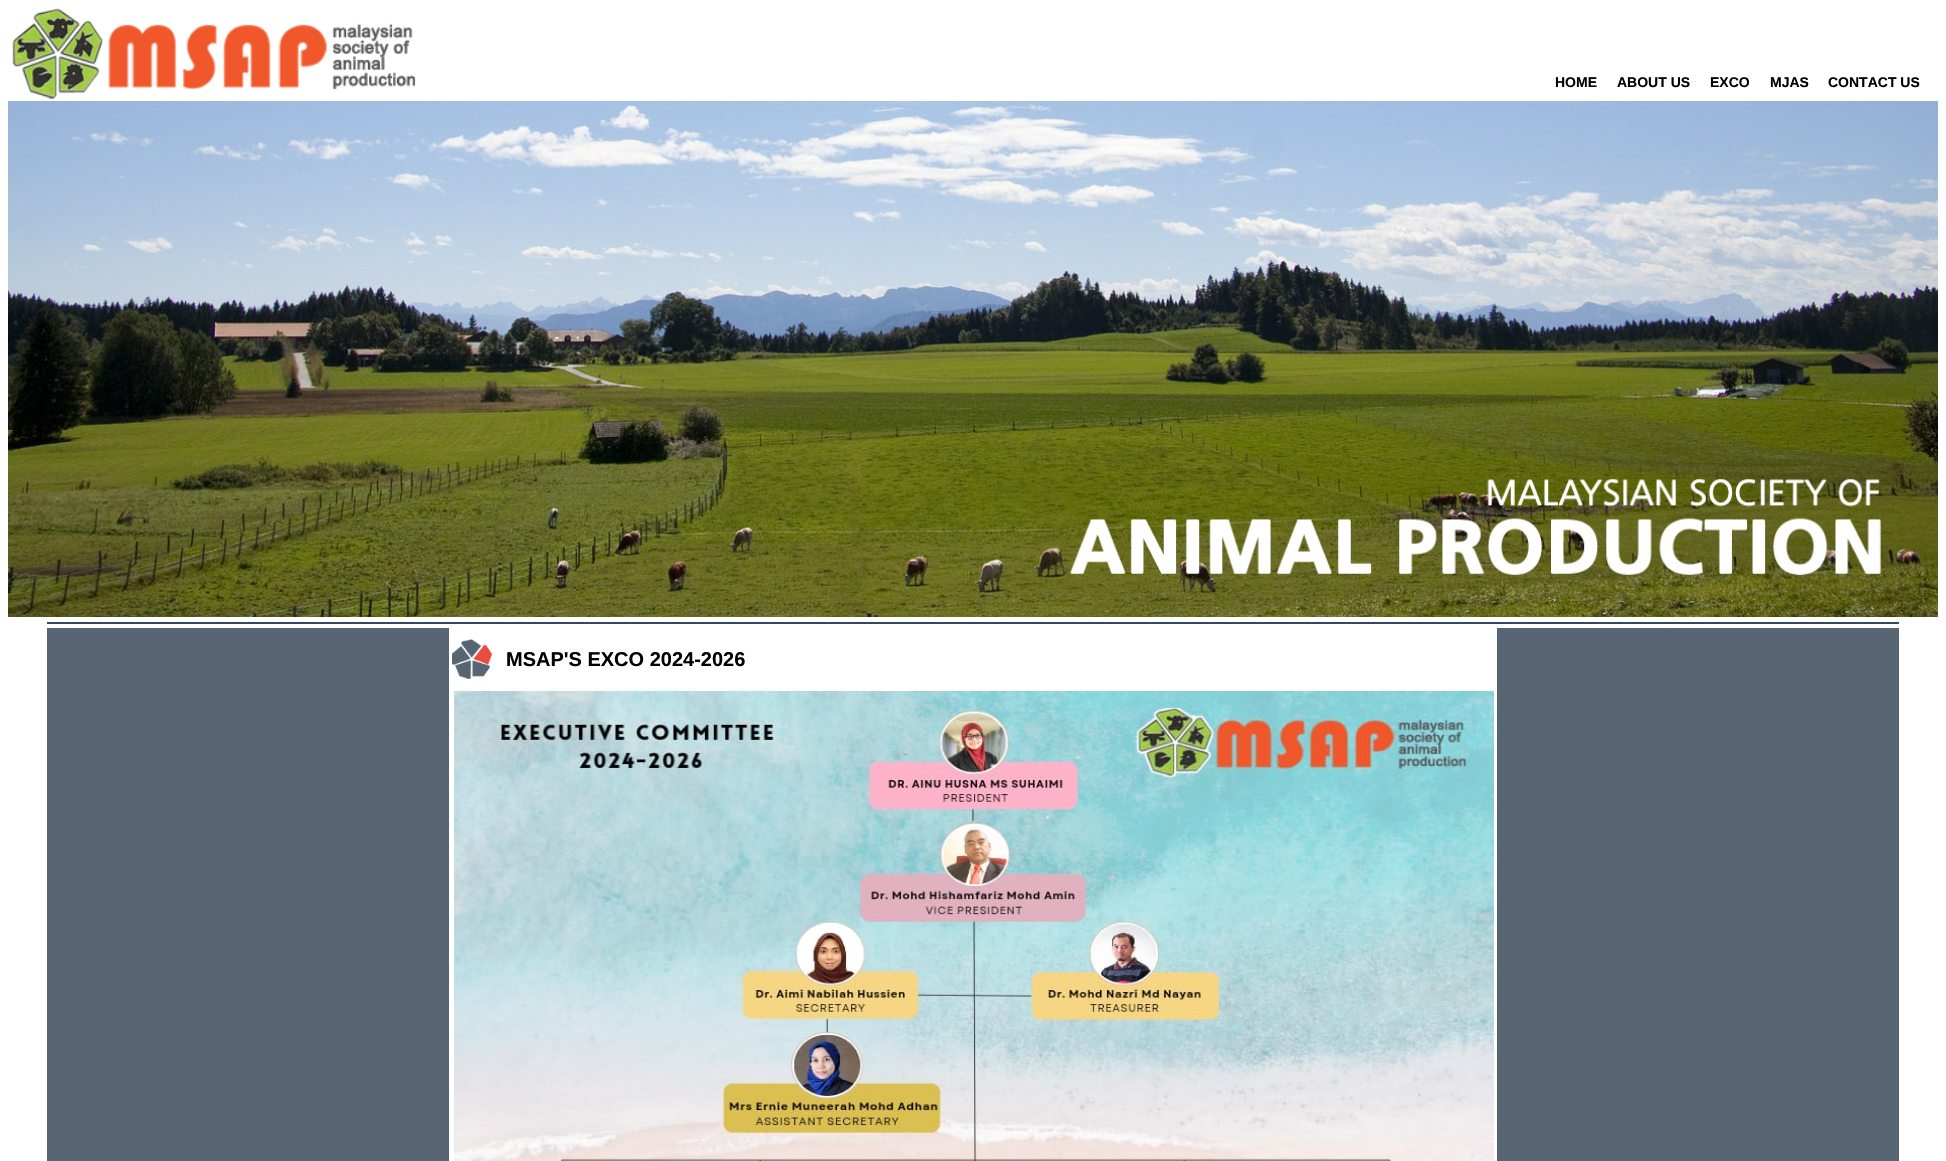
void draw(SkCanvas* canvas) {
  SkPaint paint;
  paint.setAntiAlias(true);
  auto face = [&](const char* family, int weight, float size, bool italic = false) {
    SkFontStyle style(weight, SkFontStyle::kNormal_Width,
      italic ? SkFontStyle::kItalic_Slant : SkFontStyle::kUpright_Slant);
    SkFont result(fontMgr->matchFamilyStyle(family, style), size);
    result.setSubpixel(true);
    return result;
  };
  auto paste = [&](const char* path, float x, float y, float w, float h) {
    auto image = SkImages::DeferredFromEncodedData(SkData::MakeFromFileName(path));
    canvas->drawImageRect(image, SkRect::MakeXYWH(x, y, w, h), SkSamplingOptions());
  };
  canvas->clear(0xffffffff);
  paste("img/1.png", 12, 8, 404, 91);
  paste("img/2.png", 8, 101, 1930, 516);
  {
    const struct { float x, y, w, h; SkColor color; } items[] = {
      {47, 622, 1852, 2, 0xff34495e},
      {47, 628, 1852, 533, 0xff576573},
      {449, 628, 1048, 533, 0xffffffff},
    };
    for (auto [x, y, w, h, color] : items) {
      paint.setColor(color);
      canvas->drawRect(SkRect::MakeXYWH(x, y, w, h), paint);
    }
  }
  paste("img/3.png", 452, 639, 40, 40);
  paste("img/4.png", 454, 691, 1040, 470);
  auto f0 = face("Liberation Sans", 700, 14);
  paint.setColor(0xff000000);
  {
    const struct { const char* s; float x, y; } items[] = {
      {"HOME", 1555, 87},
      {"ABOUT US", 1617, 87},
      {"EXCO", 1710, 87},
      {"MJAS", 1770, 87},
      {"CONTACT US", 1828, 87},
    };
    for (auto [s, x, y] : items) {
      canvas->drawString(s, x, y, f0, paint);
    }
  }
  auto f1 = face("Liberation Sans", 700, 20);
  canvas->drawString("MSAP'S EXCO 2024-2026", 506, 666, f1, paint);
}
